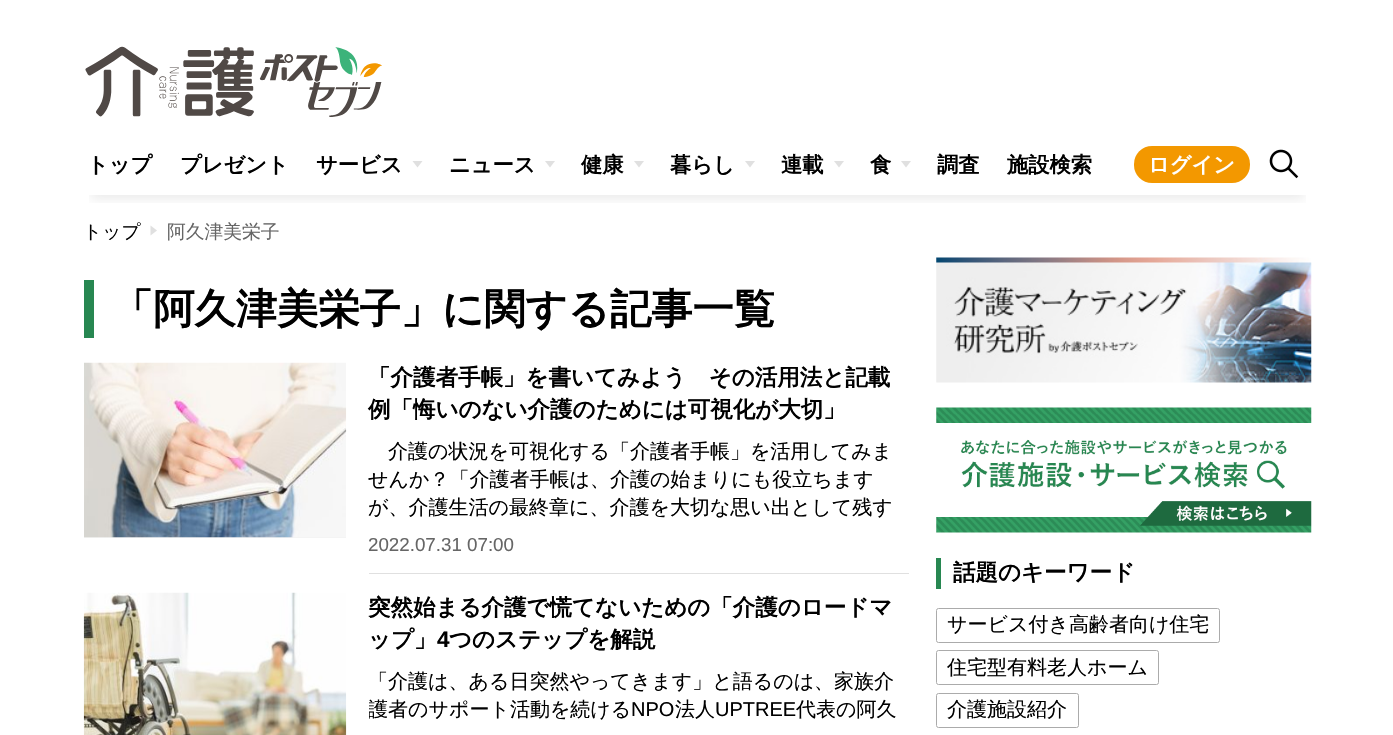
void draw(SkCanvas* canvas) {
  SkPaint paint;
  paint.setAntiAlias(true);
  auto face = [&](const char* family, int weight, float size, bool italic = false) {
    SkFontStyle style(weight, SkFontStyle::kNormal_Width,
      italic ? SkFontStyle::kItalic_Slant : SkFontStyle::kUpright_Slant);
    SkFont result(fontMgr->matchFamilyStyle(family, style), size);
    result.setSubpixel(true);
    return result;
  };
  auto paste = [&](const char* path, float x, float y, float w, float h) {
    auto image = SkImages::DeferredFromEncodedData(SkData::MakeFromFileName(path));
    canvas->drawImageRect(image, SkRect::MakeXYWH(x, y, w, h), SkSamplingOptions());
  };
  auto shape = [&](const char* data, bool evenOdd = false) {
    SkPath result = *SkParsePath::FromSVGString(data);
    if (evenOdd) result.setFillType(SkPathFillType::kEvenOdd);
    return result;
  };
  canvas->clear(0xffffffff);
  paste("img/1.png", 85, 46, 297, 71);
  canvas->save();
  canvas->clipRect(SkRect::MakeXYWH(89, 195, 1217, 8));
  paint.setColor(0x14000000);
  paint.setMaskFilter(SkMaskFilter::MakeBlur(kNormal_SkBlurStyle, 5.5f));
  canvas->drawRect(SkRect::MakeXYWH(91, 151, 1213, 48), paint);
  paint.setMaskFilter(nullptr);
  canvas->restore();
  paint.setColor(0xffe0e0e0);
  canvas->drawPath(shape("M417.5 167.5L412.5 161H422.5Z"), paint);
  canvas->drawPath(shape("M550 167.5L545 161H555Z"), paint);
  canvas->drawPath(shape("M639 167.5L634 161H644Z"), paint);
  canvas->drawPath(shape("M750 167.5L745 161H755Z"), paint);
  canvas->drawPath(shape("M839 167.5L834 161H844Z"), paint);
  canvas->drawPath(shape("M906 167.5L901 161H911Z"), paint);
  paint.setColor(0xfff39800);
  canvas->drawRoundRect(SkRect::MakeXYWH(1134, 146, 116, 37), 18, 18, paint);
  paste("img/2.png", 1269, 149, 30, 30);
  paint.setColor(0xffe0e0e0);
  canvas->drawPath(shape("M157 230.5L150.5 235.5V225.5Z"), paint);
  paint.setColor(0xff278751);
  canvas->drawRect(SkRect::MakeXYWH(84, 280, 10, 58), paint);
  paint.setColor(0xfff3f3f3);
  canvas->drawRect(SkRect::MakeXYWH(84, 537, 262, 1), paint);
  paste("img/3.png", 84, 362, 263, 176);
  paint.setColor(0xffe0e0e0);
  canvas->drawRect(SkRect::MakeXYWH(369, 573, 540, 1), paint);
  paste("img/4.png", 83, 592, 264, 143);
  paste("img/5.png", 936, 257, 376, 126);
  paste("img/6.png", 936, 407, 376, 126);
  paint.setColor(0xff278751);
  canvas->drawRect(SkRect::MakeXYWH(936, 558, 5, 31), paint);
  paint.setStroke(true);
  paint.setStrokeWidth(1);
  paint.setColor(0xffababab);
  canvas->drawRoundRect(SkRect::MakeXYWH(936.5f, 608.5f, 283, 34), 2, 2, paint);
  canvas->drawRoundRect(SkRect::MakeXYWH(936.5f, 650.5f, 222, 34), 2, 2, paint);
  canvas->drawRoundRect(SkRect::MakeXYWH(936.5f, 693.5f, 142, 34), 2, 2, paint);
  auto f0 = face("WenQuanYi Zen Hei", 700, 21.25f);
  paint.setStroke(false);
  paint.setColor(0xff000000);
  {
    const struct { const char* s; float x, y; } items[] = {
      {"トップ", 87, 172},
      {"プレゼント", 180, 172},
      {"サービス", 316, 172},
      {"ニュース", 449, 172},
      {"健康", 581, 172},
      {"暮らし", 670, 172},
      {"連載", 781, 172},
      {"食", 870, 172},
      {"調査", 937, 172},
      {"施設検索", 1007, 172},
    };
    for (auto [s, x, y] : items) {
      canvas->drawString(s, x, y, f0, paint);
    }
  }
  paint.setColor(0xffffffff);
  canvas->drawString("ログイン", 1148, 172, f0, paint);
  auto f1 = face("WenQuanYi Zen Hei", 500, 18.75f);
  paint.setColor(0xff000000);
  canvas->drawString("トップ", 83, 238, f1, paint);
  paint.setColor(0xff666666);
  canvas->drawString("阿久津美栄子", 167, 238, f1, paint);
  auto f2 = face("WenQuanYi Zen Hei", 700, 41.25f);
  paint.setColor(0xff000000);
  canvas->drawString("「阿久津美栄子」に関する記事一覧", 112, 323, f2, paint);
  auto f3 = face("WenQuanYi Zen Hei", 700, 22.5f);
  canvas->drawString("「介護者手帳」を書いてみよう　その活用法と記載", 368, 385, f3, paint);
  canvas->drawString("例「悔いのない介護のためには可視化が大切」", 368, 417, f3, paint);
  auto f4 = face("WenQuanYi Zen Hei", 500, 20);
  {
    const struct { const char* s; float x, y; } items[] = {
      {"介護の状況を可視化する「介護者手帳」を活用してみま", 388, 458},
      {"せんか？「介護者手帳は、介護の始まりにも役立ちます", 368, 486},
      {"が、介護生活の最終章に、介護を大切な思い出として残す", 368, 514},
    };
    for (auto [s, x, y] : items) {
      canvas->drawString(s, x, y, f4, paint);
    }
  }
  auto f5 = face("Liberation Sans", 400, 18.75f);
  paint.setColor(0xff666666);
  canvas->drawString("2022.07.31 07:00", 368, 551, f5, paint);
  paint.setColor(0xff000000);
  canvas->drawString("突然始まる介護で慌てないための「介護のロードマ", 368, 615, f3, paint);
  canvas->drawString("ップ」", 368, 647, f3, paint);
  auto f6 = face("Liberation Sans", 700, 22.5f);
  canvas->drawString("4", 437, 647, f6, paint);
  canvas->drawString("つのステップを解説", 449, 647, f3, paint);
  canvas->drawString("「介護は、ある日突然やってきます」と語るのは、家族介", 368, 688, f4, paint);
  canvas->save();
  canvas->clipRect(SkRect::MakeXYWH(369, 668, 540, 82));
  canvas->drawString("護者のサポート活動を続ける", 368, 716, f4, paint);
  canvas->restore();
  auto f7 = face("Liberation Sans", 400, 20);
  canvas->drawString("NPO", 631, 716, f7, paint);
  canvas->drawString("法人", 675, 716, f4, paint);
  canvas->drawString("UPTREE", 715, 716, f7, paint);
  canvas->drawString("代表の阿久", 796, 716, f4, paint);
  canvas->drawString("話題のキーワード", 953, 580, f3, paint);
  {
    const struct { const char* s; float x, y; } items[] = {
      {"サービス付き高齢者向け住宅", 947, 631},
      {"住宅型有料老人ホーム", 947, 674},
      {"介護施設紹介", 947, 716},
    };
    for (auto [s, x, y] : items) {
      canvas->drawString(s, x, y, f4, paint);
    }
  }
}
